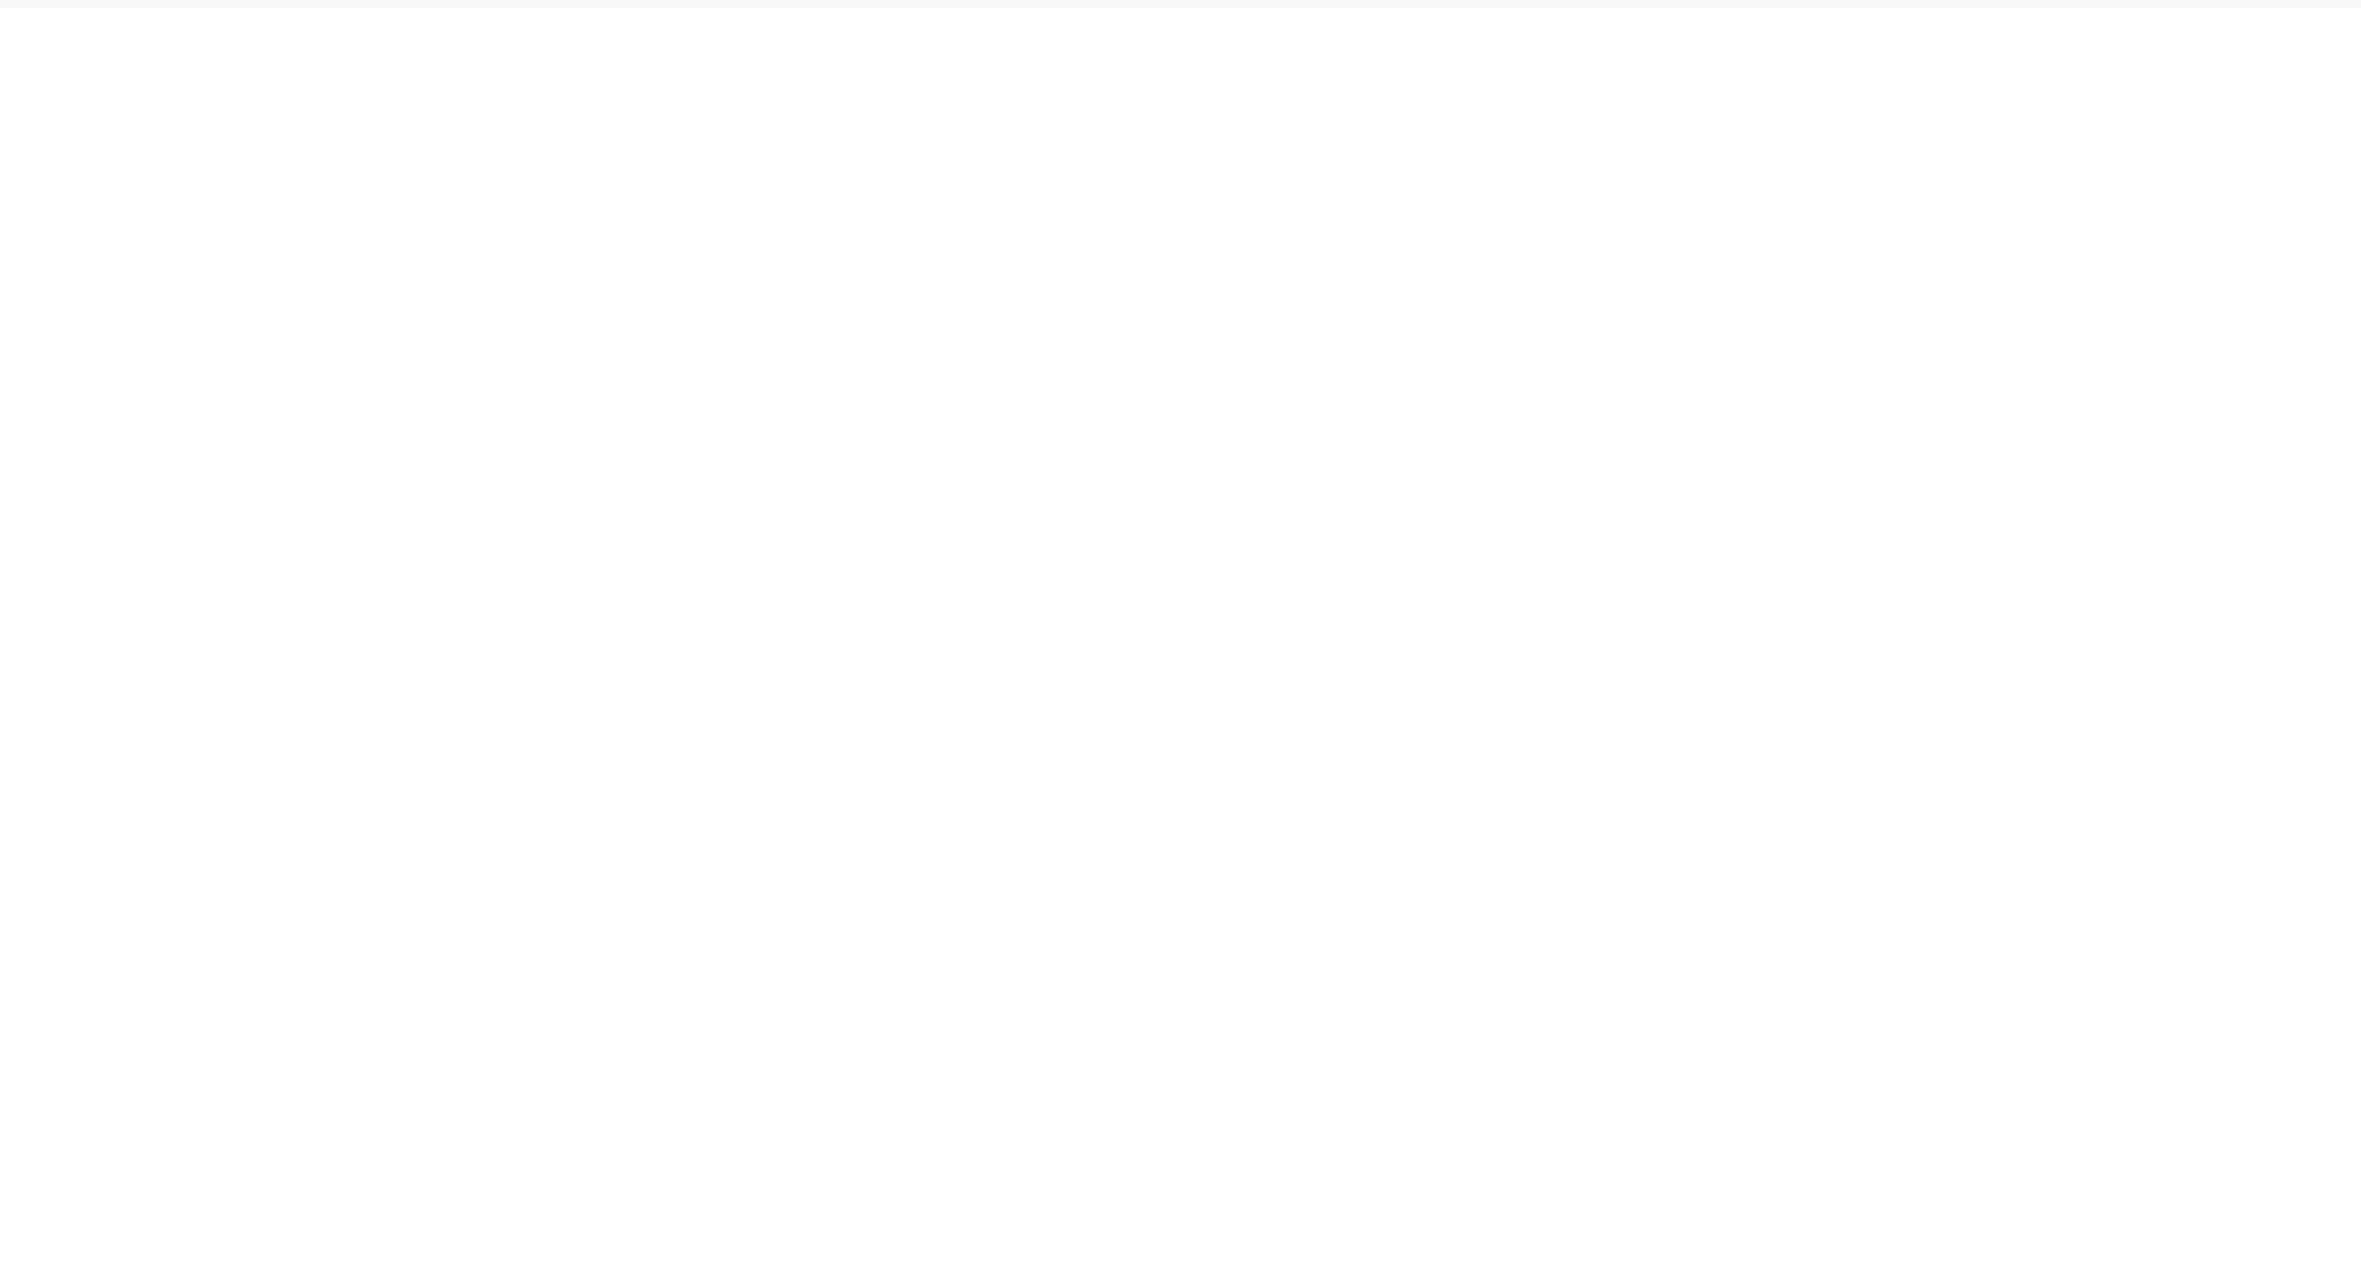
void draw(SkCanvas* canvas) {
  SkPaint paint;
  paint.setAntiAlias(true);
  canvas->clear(0xffffffff);
  paint.setColor(0xfff8f8f8);
  canvas->drawRect(SkRect::MakeXYWH(0, 0, 2361, 8), paint);
}
